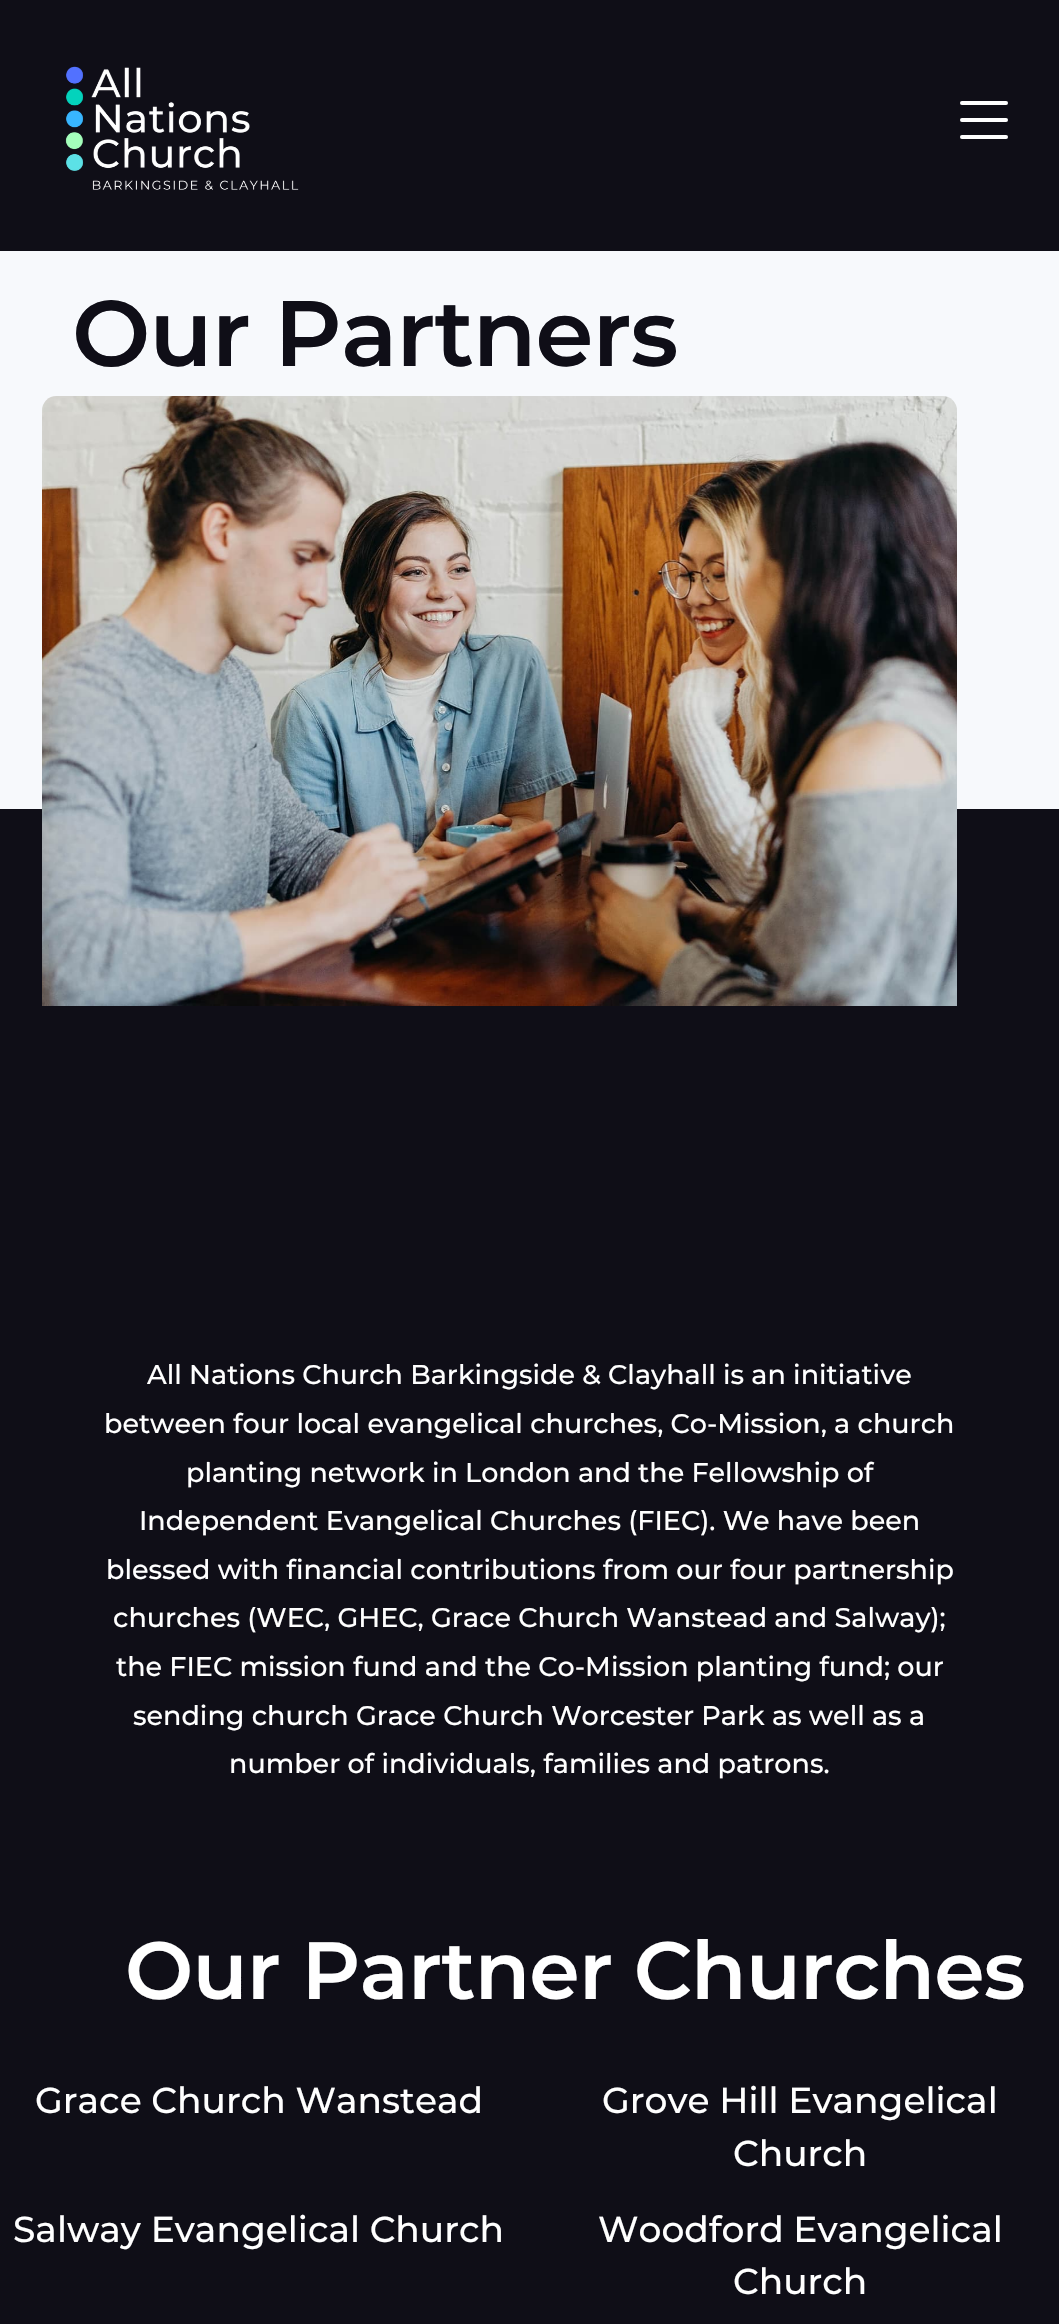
void draw(SkCanvas* canvas) {
  SkPaint paint;
  paint.setAntiAlias(true);
  auto face = [&](const char* family, int weight, float size, bool italic = false) {
    SkFontStyle style(weight, SkFontStyle::kNormal_Width,
      italic ? SkFontStyle::kItalic_Slant : SkFontStyle::kUpright_Slant);
    SkFont result(fontMgr->matchFamilyStyle(family, style), size);
    result.setSubpixel(true);
    return result;
  };
  auto writeSpaced = [&](const char* s, float x, float y, const SkFont& font, const SkPaint& ink, float letter, float word) {
    std::vector<SkGlyphID> glyphs(font.countText(s, strlen(s), SkTextEncoding::kUTF8));
    std::vector<float> xs(glyphs.size());
    font.textToGlyphs(s, strlen(s), SkTextEncoding::kUTF8, glyphs);
    font.getXPos(glyphs, xs, x);
    float extra = 0;
    for (size_t i = 0; i < glyphs.size(); i++) {
      xs[i] += extra;
      extra += letter + word * (glyphs[i] == font.unicharToGlyph(' '));
    }
    canvas->drawTextBlob(SkTextBlob::MakeFromPosHGlyphs(glyphs, xs, y, font), 0, 0, ink);
  };
  auto paste = [&](const char* path, float x, float y, float w, float h) {
    auto image = SkImages::DeferredFromEncodedData(SkData::MakeFromFileName(path));
    canvas->drawImageRect(image, SkRect::MakeXYWH(x, y, w, h), SkSamplingOptions());
  };
  auto shape = [&](const char* data, bool evenOdd = false) {
    SkPath result = *SkParsePath::FromSVGString(data);
    if (evenOdd) result.setFillType(SkPathFillType::kEvenOdd);
    return result;
  };
  canvas->clear(0xff0f0e17);
  paste("img/2.png", 65, 66, 234, 124);
  paste("img/1.png", 65, 66, 234, 124);
  paint.setStroke(true);
  paint.setStrokeWidth(4);
  paint.setStrokeCap(SkPaint::kRound_Cap);
  paint.setColor(0xff27262e);
  canvas->drawPath(shape("M962 137H1006M962 103H1006M962 120H1006"), paint);
  paint.setColor(0xffffffff);
  canvas->drawPath(shape("M962 137H1006M962 103H1006M962 120H1006"), paint);
  paint.setStroke(false);
  paint.setColor(0xfff7f9fc);
  canvas->drawRect(SkRect::MakeXYWH(0, 251, 1059, 558), paint);
  paste("img/3.png", 42, 396, 915, 610);
  auto f0 = face("Montserrat", 600, 93);
  paint.setColor(0xff0f0e17);
  writeSpaced("Our Partners", 72, 366, f0, paint, -1, 0);
  auto f1 = face("Montserrat", 500, 27);
  paint.setColor(0xffffffff);
  {
    const struct { const char* s; float x, y; } items[] = {
      {"All Nations Church Barkingside & Clayhall is an initiative", 147, 1384},
      {"between four local evangelical churches, Co-Mission, a church", 104, 1433},
      {"planting network in London and the Fellowship of", 186, 1482},
      {"Independent Evangelical Churches (FIEC). We have been", 139, 1530},
      {"blessed with financial contributions from our four partnership", 106, 1579},
      {"churches (WEC, GHEC, Grace Church Wanstead and Salway);", 113, 1627},
      {"the FIEC mission fund and the Co-Mission planting fund; our", 116, 1676},
      {"sending church Grace Church Worcester Park as well as a", 133, 1725},
      {"number of individuals, families and patrons.", 229, 1773},
    };
    for (auto [s, x, y] : items) {
      canvas->drawString(s, x, y, f1, paint);
    }
  }
  auto f2 = face("Montserrat", 600, 81);
  writeSpaced("Our Partner Churches", 125, 1999, f2, paint, -0.8f, 0);
  auto f3 = face("Montserrat", 500, 36);
  {
    const struct { const char* s; float x, y; } items[] = {
      {"Grace Church Wanstead", 35, 2113},
      {"Grove Hill Evangelical", 602, 2113},
      {"Church", 733, 2166},
      {"Salway Evangelical Church", 13, 2242},
      {"Woodford Evangelical", 598, 2242},
      {"Church", 733, 2294},
    };
    for (auto [s, x, y] : items) {
      canvas->drawString(s, x, y, f3, paint);
    }
  }
}
